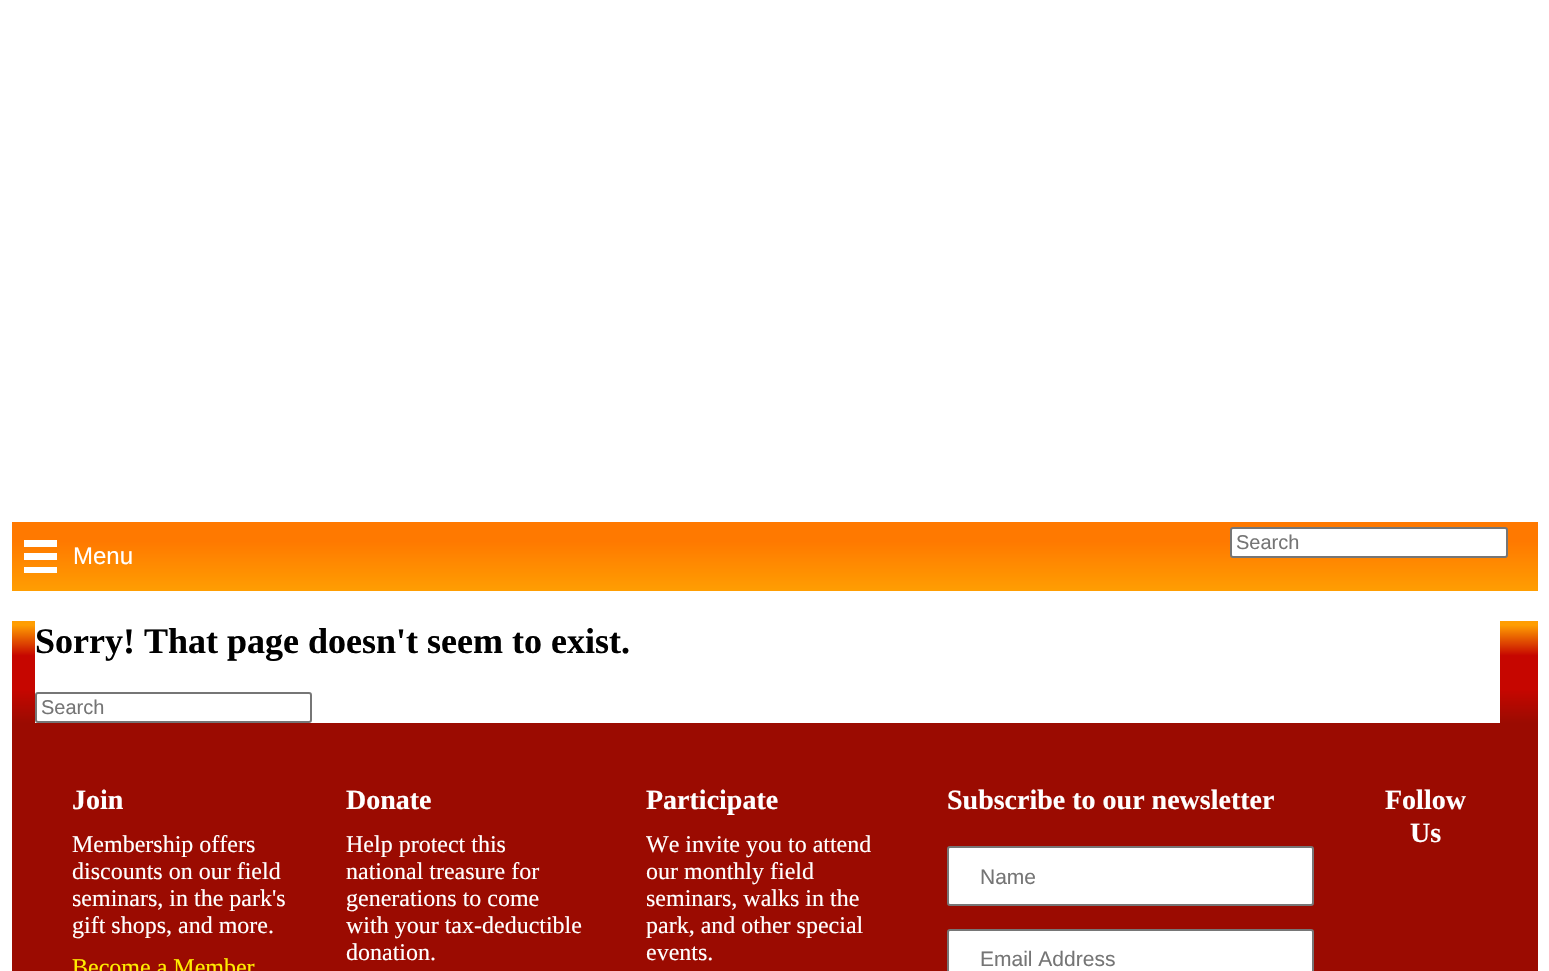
void draw(SkCanvas* canvas) {
  SkPaint paint;
  paint.setAntiAlias(true);
  auto face = [&](const char* family, int weight, float size, bool italic = false) {
    SkFontStyle style(weight, SkFontStyle::kNormal_Width,
      italic ? SkFontStyle::kItalic_Slant : SkFontStyle::kUpright_Slant);
    SkFont result(fontMgr->matchFamilyStyle(family, style), size);
    result.setSubpixel(true);
    return result;
  };
  canvas->clear(0xffffffff);
  {
    const SkColor colors[] = {0xffff7900, 0xffff9e02};
    const float stops[] = {0.28f, 1};
    const SkPoint ends[] = {{775, 522}, {775, 591}};
    paint.setShader(SkGradientShader::MakeLinear(ends, colors, stops, 2, SkTileMode::kClamp));
    paint.setAlpha(255);
  }
  canvas->drawRect(SkRect::MakeXYWH(12, 522, 1526, 69), paint);
  paint.setShader(nullptr);
  paint.setColor(0xffffffff);
  canvas->drawRoundRect(SkRect::MakeXYWH(1231, 528, 276, 29), 2, 2, paint);
  paint.setStroke(true);
  paint.setStrokeWidth(2);
  paint.setColor(0xff767676);
  canvas->drawRoundRect(SkRect::MakeXYWH(1231, 528, 276, 29), 2, 2, paint);
  paint.setStroke(false);
  {
    const struct { float x, y, w, h; SkColor color; } items[] = {
      {24, 540, 33, 7, 0xffffffff},
      {24, 553, 33, 7, 0xffffffff},
      {24, 567, 33, 6, 0xffffffff},
    };
    for (auto [x, y, w, h, color] : items) {
      paint.setColor(color);
      canvas->drawRect(SkRect::MakeXYWH(x, y, w, h), paint);
    }
  }
  {
    const SkColor colors[] = {0xffff9e02, 0xffc60600, 0xffc60600, 0xff9b0b01};
    const float stops[] = {0.04f, 0.34f, 0.67f, 1};
    const SkPoint ends[] = {{775, 621}, {775, 723}};
    paint.setShader(SkGradientShader::MakeLinear(ends, colors, stops, 4, SkTileMode::kClamp));
    paint.setAlpha(255);
  }
  canvas->drawRect(SkRect::MakeXYWH(12, 621, 1526, 102), paint);
  paint.setShader(nullptr);
  paint.setColor(0xffffffff);
  canvas->drawRect(SkRect::MakeXYWH(35, 621, 1465, 102), paint);
  paint.setStroke(true);
  paint.setColor(0xff767676);
  canvas->drawRoundRect(SkRect::MakeXYWH(36, 693, 275, 29), 2, 2, paint);
  paint.setStroke(false);
  paint.setColor(0xff9b0b01);
  canvas->drawRect(SkRect::MakeXYWH(12, 723, 1526, 248), paint);
  paint.setColor(0xffffffff);
  canvas->drawRoundRect(SkRect::MakeXYWH(948, 847, 365, 58), 2, 2, paint);
  paint.setStroke(true);
  paint.setColor(0xff767676);
  canvas->drawRoundRect(SkRect::MakeXYWH(948, 847, 365, 58), 2, 2, paint);
  paint.setStroke(false);
  paint.setColor(0xffffffff);
  canvas->drawRoundRect(SkRect::MakeXYWH(948, 930, 365, 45), 2, 2, paint);
  paint.setStroke(true);
  paint.setColor(0xff767676);
  canvas->drawRoundRect(SkRect::MakeXYWH(948, 930, 365, 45), 2, 2, paint);
  auto f0 = face("Liberation Sans", 400, 20);
  paint.setStroke(false);
  paint.setColor(0xff757575);
  canvas->drawString("Search", 1236, 549, f0, paint);
  auto f1 = face("Liberation Sans", 400, 24);
  paint.setColor(0xffffffff);
  canvas->drawString("Menu", 73, 564, f1, paint);
  auto f2 = face("Liberation Serif", 700, 36);
  paint.setColor(0xff000000);
  canvas->drawString("Sorry! That page doesn't seem to exist.", 35, 653, f2, paint);
  paint.setColor(0xff757575);
  canvas->drawString("Search", 41, 714, f0, paint);
  auto f3 = face("Liberation Serif", 700, 28);
  paint.setColor(0xffffffff);
  canvas->drawString("Join", 72, 809, f3, paint);
  auto f4 = face("Liberation Serif", 400, 24);
  {
    const struct { const char* s; float x, y; } items[] = {
      {"Membership offers", 72, 852},
      {"discounts on our field", 72, 879},
      {"seminars, in the park's", 72, 906},
      {"gift shops, and more.", 72, 933},
    };
    for (auto [s, x, y] : items) {
      canvas->drawString(s, x, y, f4, paint);
    }
  }
  paint.setColor(0xffffee00);
  canvas->drawString("Become a Member", 72, 975, f4, paint);
  paint.setColor(0xffffffff);
  canvas->drawString("Donate", 346, 809, f3, paint);
  {
    const struct { const char* s; float x, y; } items[] = {
      {"Help protect this", 346, 852},
      {"national treasure for", 346, 879},
      {"generations to come", 346, 906},
      {"with your tax-deductible", 346, 933},
      {"donation.", 346, 960},
    };
    for (auto [s, x, y] : items) {
      canvas->drawString(s, x, y, f4, paint);
    }
  }
  canvas->drawString("Participate", 646, 809, f3, paint);
  {
    const struct { const char* s; float x, y; } items[] = {
      {"We invite you to attend", 646, 852},
      {"our monthly field", 646, 879},
      {"seminars, walks in the", 646, 906},
      {"park, and other special", 646, 933},
      {"events.", 646, 960},
    };
    for (auto [s, x, y] : items) {
      canvas->drawString(s, x, y, f4, paint);
    }
  }
  canvas->drawString("Subscribe to our newsletter", 947, 809, f3, paint);
  auto f5 = face("Liberation Sans", 400, 21);
  paint.setColor(0xff757575);
  canvas->drawString("Name", 980, 884, f5, paint);
  canvas->drawString("Email Address", 980, 966, f5, paint);
  paint.setColor(0xffffffff);
  canvas->drawString("Follow", 1385, 809, f3, paint);
  canvas->drawString("Us", 1410, 842, f3, paint);
}
